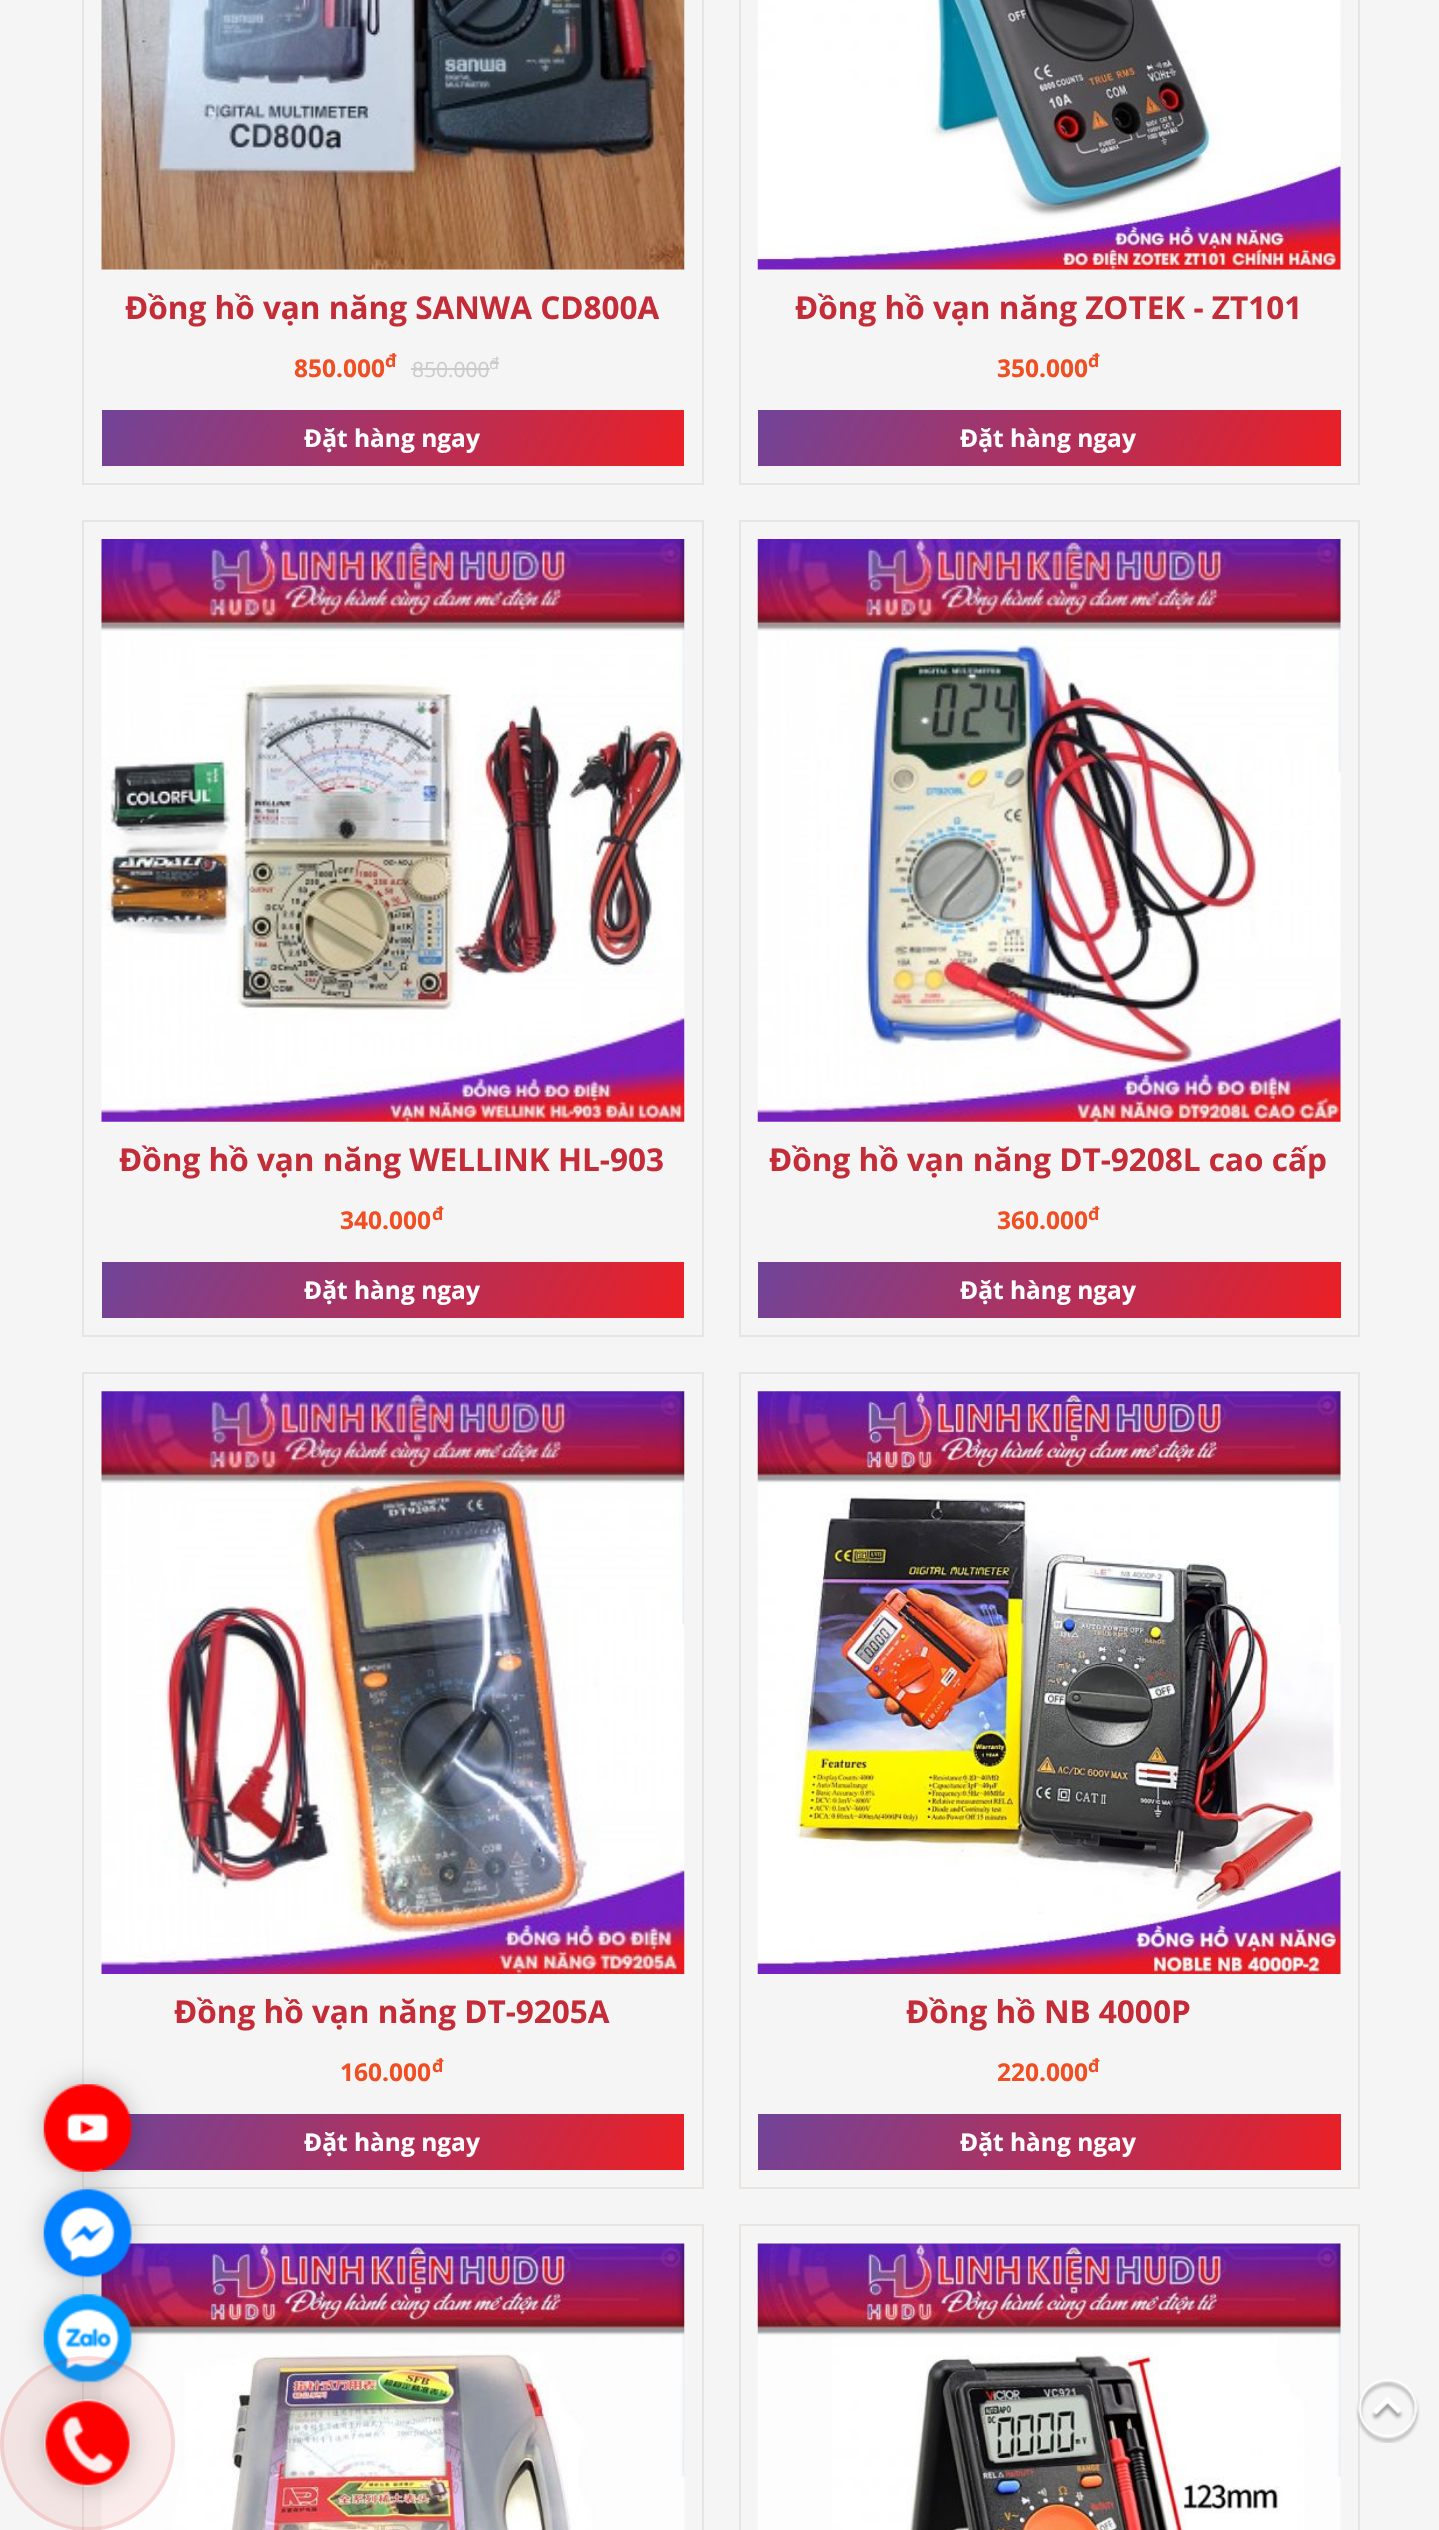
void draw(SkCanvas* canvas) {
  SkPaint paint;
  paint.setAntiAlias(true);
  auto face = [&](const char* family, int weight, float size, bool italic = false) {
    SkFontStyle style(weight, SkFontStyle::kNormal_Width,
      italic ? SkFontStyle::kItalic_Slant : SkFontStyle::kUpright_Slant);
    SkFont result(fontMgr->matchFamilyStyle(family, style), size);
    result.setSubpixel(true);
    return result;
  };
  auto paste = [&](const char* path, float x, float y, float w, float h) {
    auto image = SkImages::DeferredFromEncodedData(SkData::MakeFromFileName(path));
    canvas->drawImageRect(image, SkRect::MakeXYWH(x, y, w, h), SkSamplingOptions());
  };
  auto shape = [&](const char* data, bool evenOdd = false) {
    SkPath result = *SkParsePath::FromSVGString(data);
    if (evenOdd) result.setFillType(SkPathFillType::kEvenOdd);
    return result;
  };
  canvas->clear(0xfff5f5f5);
  paint.setStroke(true);
  paint.setStrokeWidth(2);
  paint.setColor(0xffe8e4e1);
  canvas->drawRect(SkRect::MakeXYWH(83, -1, 620, 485), paint);
  paste("img/1.png", 101, 0, 584, 270);
  paint.setStroke(false);
  paint.setColor(0xffcccccc);
  canvas->drawRect(SkRect::MakeXYWH(411, 368, 79, 2), paint);
  canvas->drawRect(SkRect::MakeXYWH(490, 362, 9, 2), paint);
  {
    const SkColor colors[] = {0xff714499, 0xffec1f24};
    const float stops[] = {0, 1};
    const SkPoint ends[] = {{162, 304}, {624, 571}};
    paint.setShader(SkGradientShader::MakeLinear(ends, colors, stops, 2, SkTileMode::kClamp));
    paint.setAlpha(255);
  }
  canvas->drawRect(SkRect::MakeXYWH(102, 410, 582, 56), paint);
  paint.setStroke(true);
  paint.setShader(nullptr);
  paint.setColor(0xffe8e4e1);
  canvas->drawRect(SkRect::MakeXYWH(740, -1, 619, 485), paint);
  paste("img/2.png", 757, 0, 584, 270);
  paint.setStroke(false);
  {
    const SkColor colors[] = {0xff714499, 0xffec1f24};
    const float stops[] = {0, 1};
    const SkPoint ends[] = {{818, 304}, {1280, 571}};
    paint.setShader(SkGradientShader::MakeLinear(ends, colors, stops, 2, SkTileMode::kClamp));
    paint.setAlpha(255);
  }
  canvas->drawRect(SkRect::MakeXYWH(758, 410, 583, 56), paint);
  paint.setStroke(true);
  paint.setShader(nullptr);
  paint.setColor(0xffe8e4e1);
  canvas->drawRect(SkRect::MakeXYWH(83, 521, 620, 815), paint);
  paste("img/3.png", 101, 539, 584, 583);
  paint.setStroke(false);
  {
    const SkColor colors[] = {0xff714499, 0xffec1f24};
    const float stops[] = {0, 1};
    const SkPoint ends[] = {{162, 1157}, {624, 1423}};
    paint.setShader(SkGradientShader::MakeLinear(ends, colors, stops, 2, SkTileMode::kClamp));
    paint.setAlpha(255);
  }
  canvas->drawRect(SkRect::MakeXYWH(102, 1262, 582, 56), paint);
  paint.setStroke(true);
  paint.setShader(nullptr);
  paint.setColor(0xffe8e4e1);
  canvas->drawRect(SkRect::MakeXYWH(740, 521, 619, 815), paint);
  paste("img/4.png", 757, 539, 584, 583);
  paint.setStroke(false);
  {
    const SkColor colors[] = {0xff714499, 0xffec1f24};
    const float stops[] = {0, 1};
    const SkPoint ends[] = {{818, 1157}, {1280, 1423}};
    paint.setShader(SkGradientShader::MakeLinear(ends, colors, stops, 2, SkTileMode::kClamp));
    paint.setAlpha(255);
  }
  canvas->drawRect(SkRect::MakeXYWH(758, 1262, 583, 56), paint);
  paint.setStroke(true);
  paint.setShader(nullptr);
  paint.setColor(0xffe8e4e1);
  canvas->drawRect(SkRect::MakeXYWH(83, 1373, 620, 815), paint);
  paste("img/5.png", 101, 1391, 584, 583);
  paint.setStroke(false);
  {
    const SkColor colors[] = {0xff714499, 0xffec1f24};
    const float stops[] = {0, 1};
    const SkPoint ends[] = {{162, 2009}, {624, 2275}};
    paint.setShader(SkGradientShader::MakeLinear(ends, colors, stops, 2, SkTileMode::kClamp));
    paint.setAlpha(255);
  }
  canvas->drawRect(SkRect::MakeXYWH(102, 2114, 582, 56), paint);
  paint.setStroke(true);
  paint.setShader(nullptr);
  paint.setColor(0xffe8e4e1);
  canvas->drawRect(SkRect::MakeXYWH(740, 1373, 619, 815), paint);
  paste("img/6.png", 757, 1391, 584, 583);
  paint.setStroke(false);
  {
    const SkColor colors[] = {0xff714499, 0xffec1f24};
    const float stops[] = {0, 1};
    const SkPoint ends[] = {{818, 2009}, {1280, 2275}};
    paint.setShader(SkGradientShader::MakeLinear(ends, colors, stops, 2, SkTileMode::kClamp));
    paint.setAlpha(255);
  }
  canvas->drawRect(SkRect::MakeXYWH(758, 2114, 583, 56), paint);
  paint.setStroke(true);
  paint.setShader(nullptr);
  paint.setColor(0xffe8e4e1);
  canvas->drawRect(SkRect::MakeXYWH(83, 2225, 620, 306), paint);
  paste("img/7.png", 101, 2243, 584, 287);
  canvas->drawRect(SkRect::MakeXYWH(740, 2225, 619, 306), paint);
  paste("img/8.png", 757, 2243, 584, 287);
  canvas->save();
  canvas->clipPath(shape("M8 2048H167V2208H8ZM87.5 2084C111.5 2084 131 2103.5 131 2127.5V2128.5C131 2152.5 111.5 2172 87.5 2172C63.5 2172 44 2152.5 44 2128.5V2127.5C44 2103.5 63.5 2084 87.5 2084Z", true), true);
  paint.setStroke(false);
  paint.setColor(0x40000000);
  paint.setMaskFilter(SkMaskFilter::MakeBlur(kNormal_SkBlurStyle, 11.5f));
  canvas->drawRoundRect(SkRect::MakeXYWH(44, 2084, 87, 88), 43.5f, 43.5f, paint);
  paint.setMaskFilter(nullptr);
  canvas->restore();
  paste("img/9.png", 43, 2084, 89, 88);
  canvas->save();
  canvas->clipPath(shape("M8 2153H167V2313H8ZM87.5 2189C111.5 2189 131 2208.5 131 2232.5V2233.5C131 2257.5 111.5 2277 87.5 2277C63.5 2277 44 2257.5 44 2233.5V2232.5C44 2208.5 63.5 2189 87.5 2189Z", true), true);
  paint.setMaskFilter(SkMaskFilter::MakeBlur(kNormal_SkBlurStyle, 11.5f));
  canvas->drawRoundRect(SkRect::MakeXYWH(44, 2189, 87, 88), 43.5f, 43.5f, paint);
  paint.setMaskFilter(nullptr);
  canvas->restore();
  paste("img/10.png", 43, 2189, 89, 89);
  canvas->save();
  canvas->clipPath(shape("M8 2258H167V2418H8ZM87.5 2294C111.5 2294 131 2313.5 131 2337.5V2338.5C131 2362.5 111.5 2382 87.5 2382C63.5 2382 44 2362.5 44 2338.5V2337.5C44 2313.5 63.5 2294 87.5 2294Z", true), true);
  paint.setMaskFilter(SkMaskFilter::MakeBlur(kNormal_SkBlurStyle, 11.5f));
  canvas->drawRoundRect(SkRect::MakeXYWH(44, 2294, 87, 88), 43.5f, 43.5f, paint);
  paint.setMaskFilter(nullptr);
  canvas->restore();
  paste("img/11.png", 43, 2294, 89, 89);
  canvas->save();
  canvas->clipPath(shape("M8 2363H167V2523H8ZM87.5 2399C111.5 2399 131 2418.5 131 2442.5V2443.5C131 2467.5 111.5 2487 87.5 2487C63.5 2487 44 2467.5 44 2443.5V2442.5C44 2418.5 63.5 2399 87.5 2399Z", true), true);
  paint.setMaskFilter(SkMaskFilter::MakeBlur(kNormal_SkBlurStyle, 11.5f));
  canvas->drawRoundRect(SkRect::MakeXYWH(44, 2399, 87, 88), 43.5f, 43.5f, paint);
  paint.setMaskFilter(nullptr);
  canvas->restore();
  paste("img/12.png", 44, 2400, 87, 87);
  paint.setStroke(true);
  paint.setStrokeWidth(4);
  paint.setColor(0x1ae60808);
  canvas->drawCircle(87.5f, 2443.5f, 85.5f, paint);
  paint.setStroke(false);
  paint.setColor(0x12e60808);
  canvas->drawCircle(87.5f, 2443.5f, 87.5f, paint);
  paste("img/13.png", 1356, 2379, 64, 64);
  auto f0 = face("Open Sans", 700, 31.5f);
  paint.setColor(0xffc42c38);
  canvas->drawString("Đồng hồ vạn năng SANWA CD800A", 125, 319, f0, paint);
  auto f1 = face("Open Sans", 700, 24.5f);
  paint.setColor(0xfff04e23);
  canvas->drawString("850.000", 294, 377, f1, paint);
  auto f2 = face("Open Sans", 700, 18);
  canvas->drawString("đ", 385, 367, f2, paint);
  auto f3 = face("Open Sans", 400, 21);
  paint.setColor(0xffcccccc);
  canvas->drawString("850.000", 412, 377, f3, paint);
  auto f4 = face("Open Sans", 400, 16);
  canvas->drawString("đ", 489, 369, f4, paint);
  paint.setColor(0xffffffff);
  canvas->drawString("Đặt hàng ngay", 304, 447, f1, paint);
  paint.setColor(0xffc42c38);
  canvas->drawString("Đồng hồ vạn năng ZOTEK - ZT101", 795, 319, f0, paint);
  paint.setColor(0xfff04e23);
  canvas->drawString("350.000", 997, 377, f1, paint);
  canvas->drawString("đ", 1088, 367, f2, paint);
  paint.setColor(0xffffffff);
  canvas->drawString("Đặt hàng ngay", 960, 447, f1, paint);
  paint.setColor(0xffc42c38);
  canvas->drawString("Đồng hồ vạn năng WELLINK HL-903", 119, 1171, f0, paint);
  paint.setColor(0xfff04e23);
  canvas->drawString("340.000", 340, 1229, f1, paint);
  canvas->drawString("đ", 432, 1220, f2, paint);
  paint.setColor(0xffffffff);
  canvas->drawString("Đặt hàng ngay", 304, 1299, f1, paint);
  paint.setColor(0xffc42c38);
  canvas->drawString("Đồng hồ vạn năng DT-9208L cao cấp", 769, 1171, f0, paint);
  paint.setColor(0xfff04e23);
  canvas->drawString("360.000", 997, 1229, f1, paint);
  canvas->drawString("đ", 1088, 1220, f2, paint);
  paint.setColor(0xffffffff);
  canvas->drawString("Đặt hàng ngay", 960, 1299, f1, paint);
  paint.setColor(0xffc42c38);
  canvas->drawString("Đồng hồ vạn năng DT-9205A", 174, 2023, f0, paint);
  paint.setColor(0xfff04e23);
  canvas->drawString("160.000", 340, 2081, f1, paint);
  canvas->drawString("đ", 432, 2072, f2, paint);
  paint.setColor(0xffffffff);
  canvas->drawString("Đặt hàng ngay", 304, 2151, f1, paint);
  paint.setColor(0xffc42c38);
  canvas->drawString("Đồng hồ NB 4000P", 906, 2023, f0, paint);
  paint.setColor(0xfff04e23);
  canvas->drawString("220.000", 997, 2081, f1, paint);
  canvas->drawString("đ", 1088, 2072, f2, paint);
  paint.setColor(0xffffffff);
  canvas->drawString("Đặt hàng ngay", 960, 2151, f1, paint);
}
